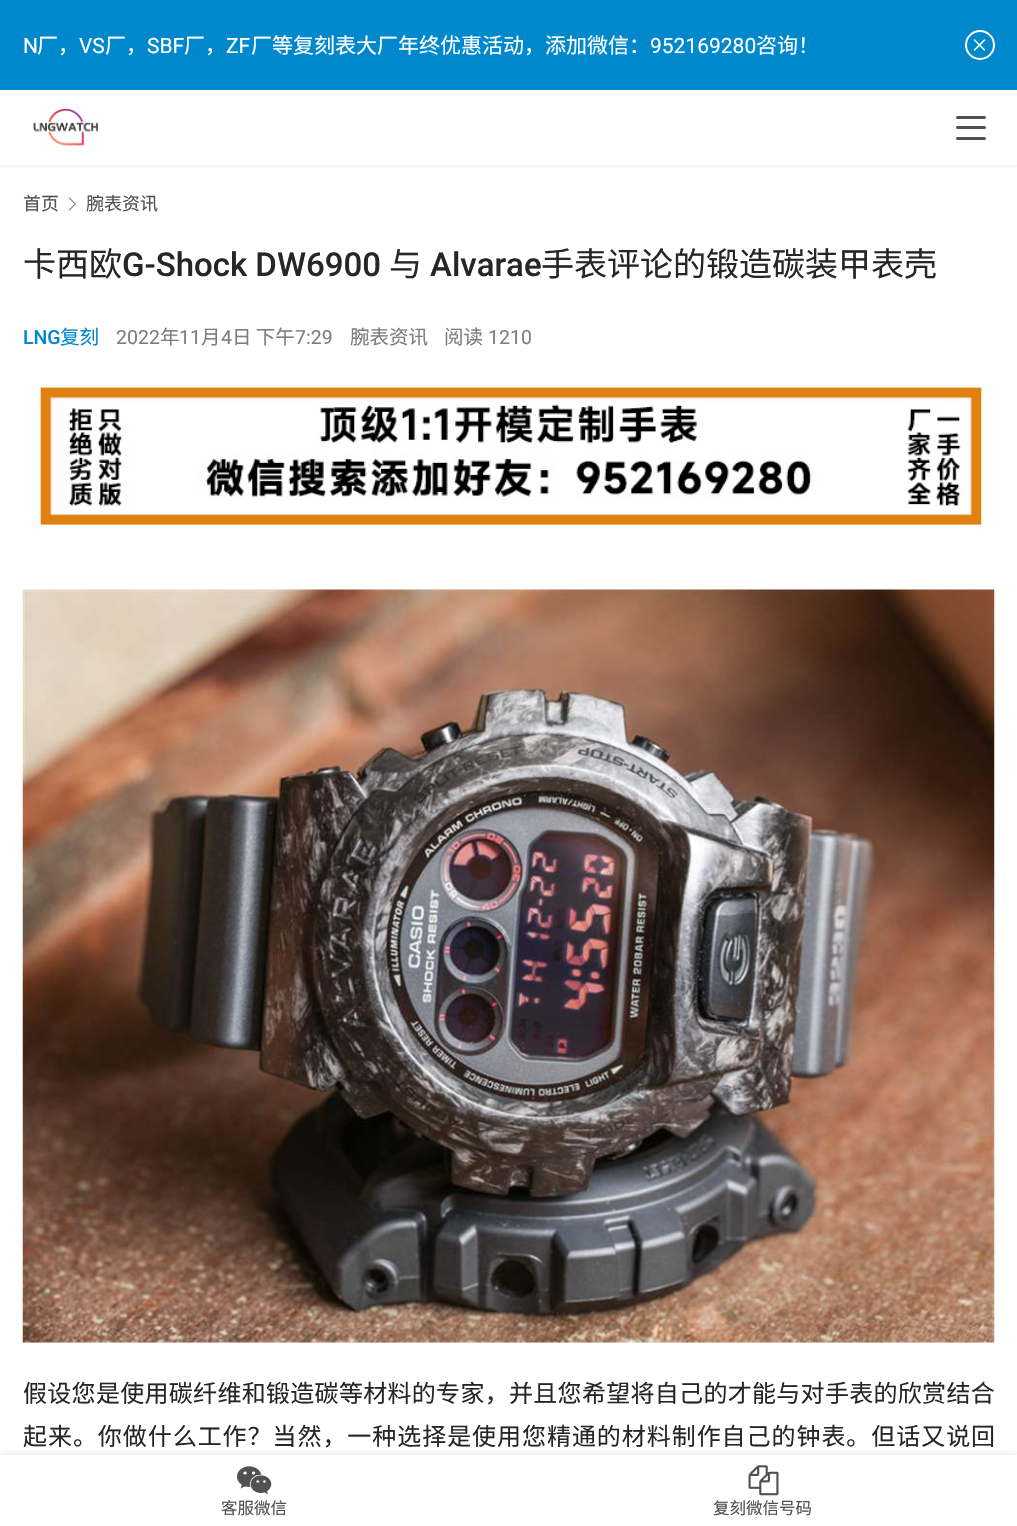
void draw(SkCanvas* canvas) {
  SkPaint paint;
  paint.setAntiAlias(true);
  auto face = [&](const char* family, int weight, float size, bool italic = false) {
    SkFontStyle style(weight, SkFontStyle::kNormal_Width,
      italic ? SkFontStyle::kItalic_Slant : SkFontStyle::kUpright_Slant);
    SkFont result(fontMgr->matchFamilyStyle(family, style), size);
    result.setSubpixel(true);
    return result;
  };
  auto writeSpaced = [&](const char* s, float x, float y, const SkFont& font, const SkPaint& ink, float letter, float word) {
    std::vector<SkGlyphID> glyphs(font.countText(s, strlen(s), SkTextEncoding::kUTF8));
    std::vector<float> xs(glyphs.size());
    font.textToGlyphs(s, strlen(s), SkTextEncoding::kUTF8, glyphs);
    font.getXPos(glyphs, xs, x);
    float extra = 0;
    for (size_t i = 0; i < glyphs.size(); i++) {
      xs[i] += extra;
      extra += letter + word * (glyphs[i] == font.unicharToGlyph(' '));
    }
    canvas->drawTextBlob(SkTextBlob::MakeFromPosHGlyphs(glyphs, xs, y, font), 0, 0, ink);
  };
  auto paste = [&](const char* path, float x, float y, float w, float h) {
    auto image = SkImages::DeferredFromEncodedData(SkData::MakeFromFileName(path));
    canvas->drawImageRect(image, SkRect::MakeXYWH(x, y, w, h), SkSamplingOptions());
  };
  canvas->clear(0xffffffff);
  canvas->save();
  canvas->clipRect(SkRect::MakeXYWH(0, 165, 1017, 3));
  paint.setColor(0x0f262626);
  paint.setMaskFilter(SkMaskFilter::MakeBlur(kNormal_SkBlurStyle, 2));
  canvas->drawRect(SkRect::MakeXYWH(-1, 89, 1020, 78), paint);
  paint.setMaskFilter(nullptr);
  canvas->restore();
  paint.setColor(0xff0088cc);
  canvas->drawRect(SkRect::MakeXYWH(0, 0, 1017, 90), paint);
  paint.setStroke(true);
  paint.setStrokeWidth(2);
  paint.setColor(0xffffffff);
  canvas->drawCircle(980, 45, 14, paint);
  paste("img/1.png", 973, 39, 13, 12);
  paste("img/2.png", 32, 108, 67, 38);
  paint.setStroke(false);
  paint.setColor(0xff515151);
  canvas->drawRoundRect(SkRect::MakeXYWH(956, 116, 30, 3), 1.5f, 1.5f, paint);
  canvas->drawRoundRect(SkRect::MakeXYWH(956, 126, 30, 3), 1.5f, 1.5f, paint);
  canvas->drawRoundRect(SkRect::MakeXYWH(956, 137, 30, 3), 1.5f, 1.5f, paint);
  paste("img/3.png", 69, 197, 7, 14);
  paste("img/4.png", 32, 384, 953, 145);
  paste("img/5.png", 22, 589, 973, 754);
  paint.setColor(0x0f262626);
  paint.setMaskFilter(SkMaskFilter::MakeBlur(kNormal_SkBlurStyle, 2));
  canvas->drawRect(SkRect::MakeXYWH(0, 1452, 1017, 72), paint);
  paint.setMaskFilter(nullptr);
  paint.setColor(0xffffffff);
  canvas->drawRect(SkRect::MakeXYWH(0, 1455, 1017, 71), paint);
  paste("img/6.png", 237, 1466, 35, 29);
  paste("img/7.png", 748, 1465, 31, 31);
  auto f0 = face("Roboto", 400, 21);
  canvas->drawString("N", 23, 53, f0, paint);
  auto f1 = face("Noto Sans CJK SC", 400, 21);
  canvas->drawString("厂，", 37, 53, f1, paint);
  canvas->drawString("VS", 79, 53, f0, paint);
  canvas->drawString("厂，", 105, 53, f1, paint);
  canvas->drawString("SBF", 147, 53, f0, paint);
  canvas->drawString("厂，", 184, 53, f1, paint);
  canvas->drawString("ZF", 226, 53, f0, paint);
  canvas->drawString("厂等复刻表大厂年终优惠活动，添加微信：", 251, 53, f1, paint);
  canvas->drawString("952169280", 650, 53, f0, paint);
  canvas->drawString("咨询！", 756, 53, f1, paint);
  auto f2 = face("Noto Sans CJK SC", 400, 18);
  paint.setColor(0xff515151);
  canvas->drawString("首页", 23, 210, f2, paint);
  canvas->drawString("腕表资讯", 86, 210, f2, paint);
  auto f3 = face("Noto Sans CJK SC", 400, 33);
  paint.setColor(0xff262626);
  canvas->drawString("卡西欧", 23, 276, f3, paint);
  auto f4 = face("Roboto", 500, 33);
  canvas->drawString("G-Shock DW6900", 122, 276, f4, paint);
  canvas->drawString("与", 389, 276, f3, paint);
  canvas->drawString("Alvarae", 430, 276, f4, paint);
  canvas->drawString("手表评论的锻造碳装甲表壳", 541, 276, f3, paint);
  auto f5 = face("Roboto", 500, 19.5f);
  paint.setColor(0xff0088cc);
  canvas->drawString("LNG", 23, 344, f5, paint);
  auto f6 = face("Noto Sans CJK SC", 400, 19.5f);
  canvas->drawString("复刻", 60, 344, f6, paint);
  auto f7 = face("Roboto", 400, 19.5f);
  paint.setColor(0xff7d7d7d);
  canvas->drawString("2022", 116, 344, f7, paint);
  canvas->drawString("年", 160, 344, f6, paint);
  canvas->drawString("11", 179, 344, f7, paint);
  canvas->drawString("月", 201, 344, f6, paint);
  canvas->drawString("4", 221, 344, f7, paint);
  canvas->drawString("日 下午", 232, 344, f6, paint);
  canvas->drawString("7:29", 295, 344, f7, paint);
  canvas->drawString("腕表资讯", 350, 344, f6, paint);
  canvas->drawString("阅读", 444, 344, f6, paint);
  canvas->drawString("1210", 488, 344, f7, paint);
  auto f8 = face("Noto Sans CJK SC", 400, 24);
  paint.setColor(0xff262626);
  writeSpaced("假设您是使用碳纤维和锻造碳等材料的专家，并且您希望将自己的才能与对手表的欣赏结合", 23, 1402, f8, paint, 0.3f, 0);
  writeSpaced("起来。你做什么工作？当然，一种选择是使用您精通的材料制作自己的钟表。但话又说回", 23, 1445, f8, paint, 0.95f, 0);
  auto f9 = face("Noto Sans CJK SC", 400, 16.5f);
  paint.setColor(0xff515151);
  canvas->drawString("客服微信", 221, 1514, f9, paint);
  canvas->drawString("复刻微信号码", 713, 1514, f9, paint);
}
